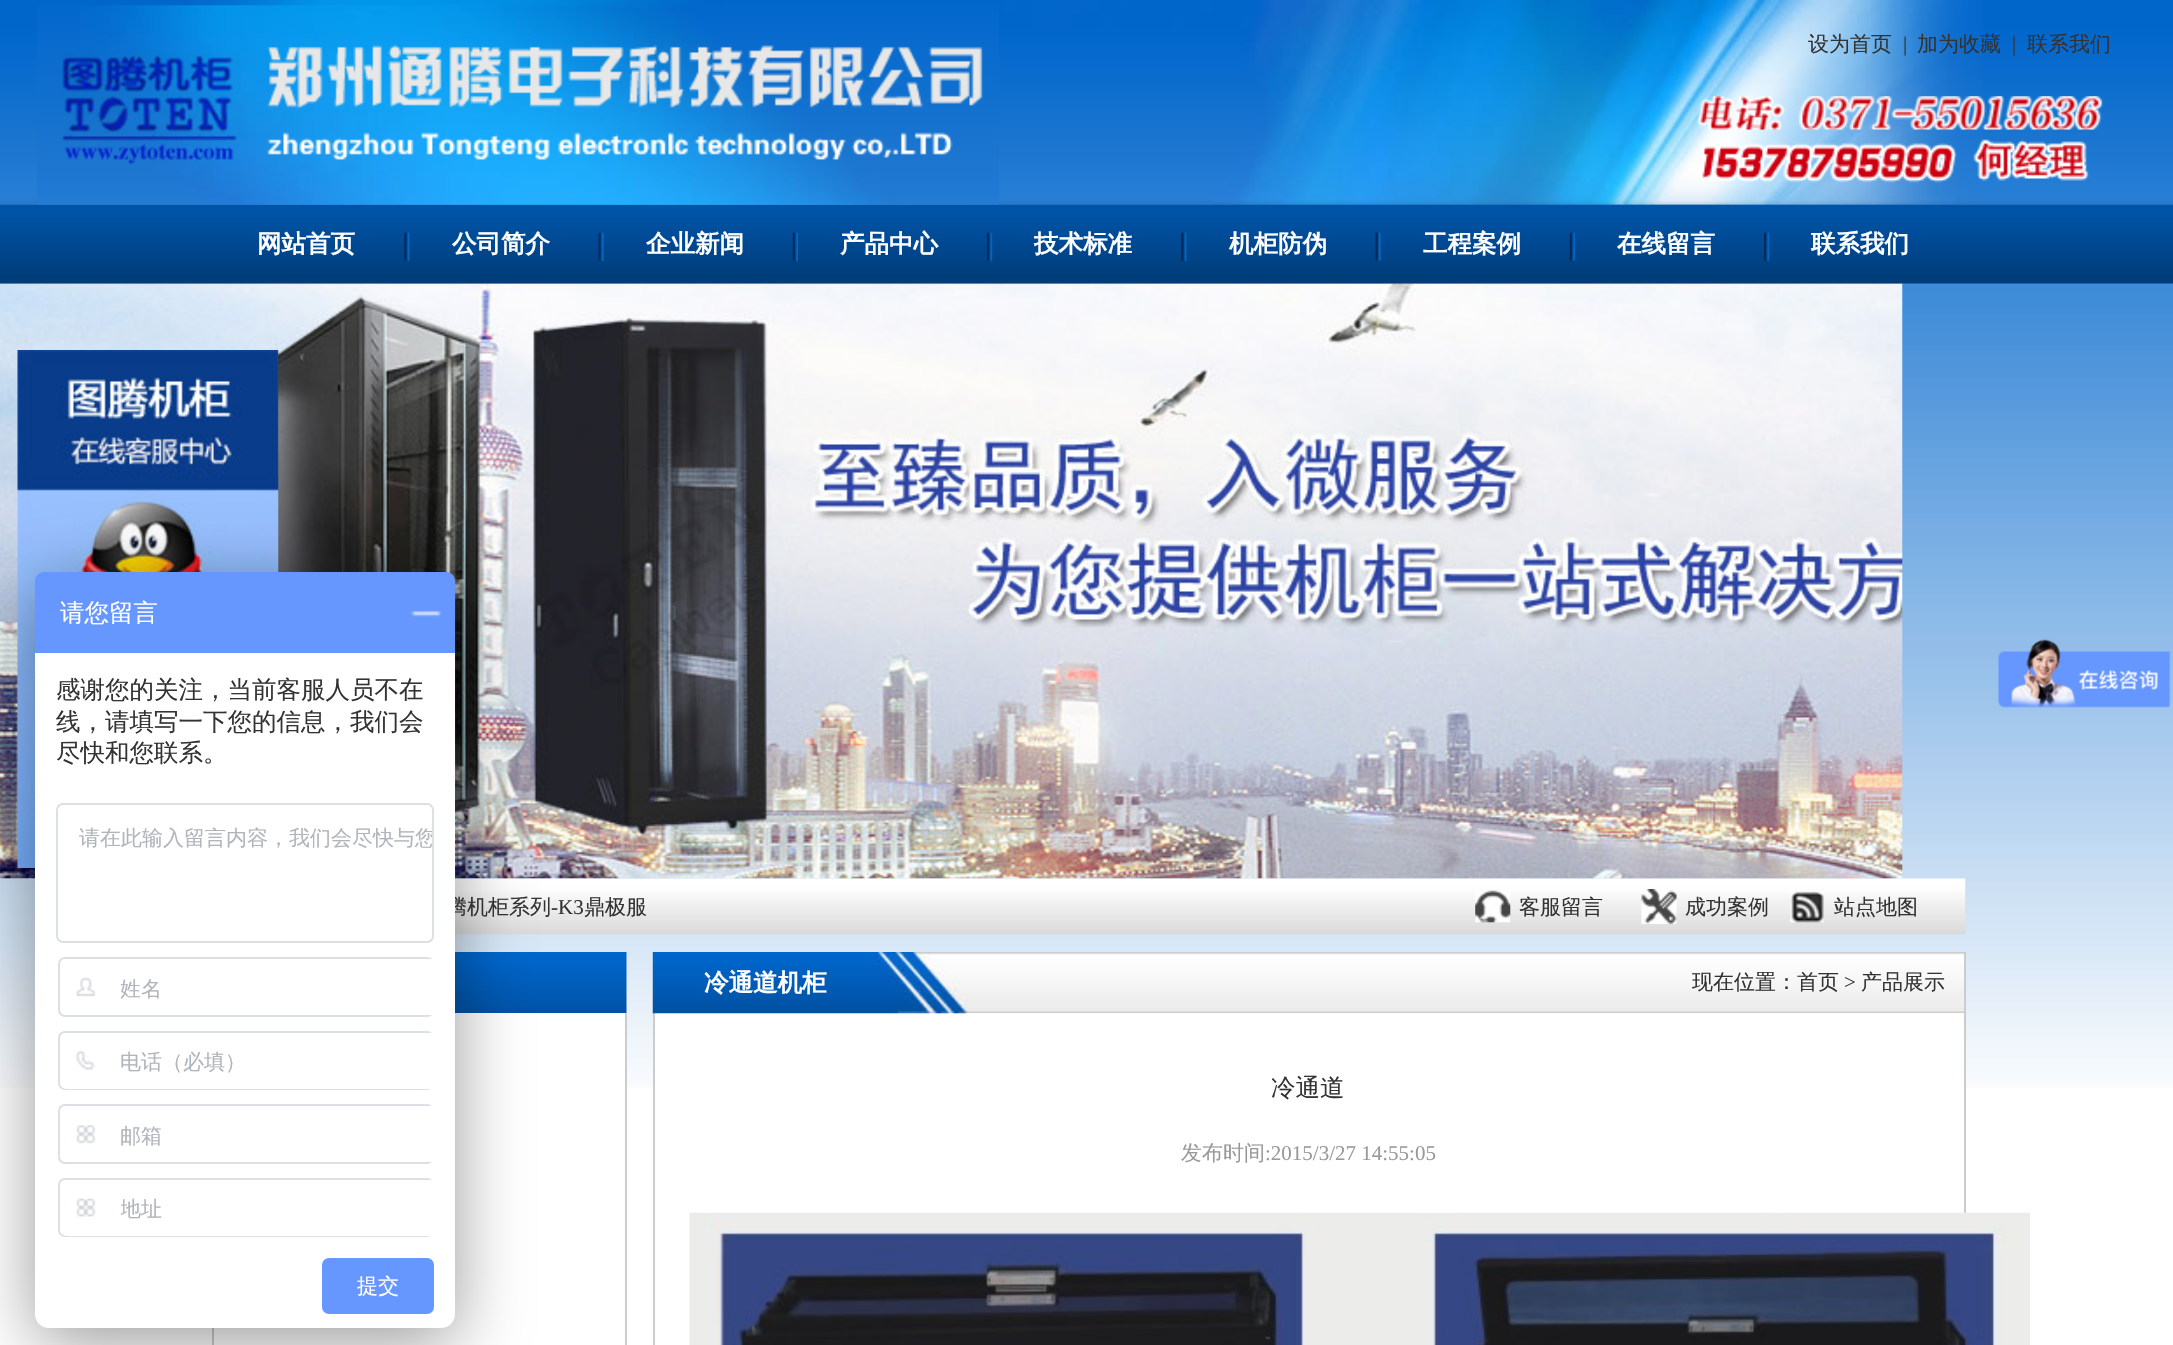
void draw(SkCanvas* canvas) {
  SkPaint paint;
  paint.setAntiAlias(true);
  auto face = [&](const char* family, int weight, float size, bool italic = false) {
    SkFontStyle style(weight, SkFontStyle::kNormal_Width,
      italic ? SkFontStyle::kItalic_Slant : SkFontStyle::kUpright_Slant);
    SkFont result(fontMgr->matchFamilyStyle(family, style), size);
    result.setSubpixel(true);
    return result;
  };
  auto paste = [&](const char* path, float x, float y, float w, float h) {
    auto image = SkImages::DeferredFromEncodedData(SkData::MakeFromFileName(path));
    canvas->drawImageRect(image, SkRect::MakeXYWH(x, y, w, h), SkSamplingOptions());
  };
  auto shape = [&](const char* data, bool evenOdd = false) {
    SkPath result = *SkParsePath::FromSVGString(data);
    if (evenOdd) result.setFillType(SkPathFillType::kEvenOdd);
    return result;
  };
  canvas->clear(0xffffffff);
  paste("img/1.png", 0, 204, 2173, 884);
  paste("img/8.png", 0, 0, 2173, 205);
  paste("img/11.png", 0, 204, 2173, 80);
  paste("img/18.png", 455, 878, 1511, 57);
  paste("img/16.png", 0, 283, 1903, 596);
  paste("img/17.png", 17, 350, 262, 518);
  paste("img/22.png", 455, 952, 172, 61);
  paint.setColor(0xffffffff);
  canvas->drawRect(SkRect::MakeXYWH(214, 1013, 411, 75), paint);
  paint.setColor(0xffcccccc);
  canvas->drawRect(SkRect::MakeXYWH(212, 1328, 2, 17), paint);
  paint.setColor(0x66000000);
  paint.setMaskFilter(SkMaskFilter::MakeBlur(kNormal_SkBlurStyle, 35));
  canvas->drawRoundRect(SkRect::MakeXYWH(35, 586, 420, 756), 14, 14, paint);
  paint.setMaskFilter(nullptr);
  paste("img/7.png", 1998, 639, 173, 69);
  paste("img/9.png", 37, 5, 962, 200);
  paste("img/10.png", 1697, 96, 406, 87);
  paste("img/12.png", 404, 232, 6, 29);
  paste("img/13.png", 598, 232, 6, 29);
  paste("img/14.png", 792, 232, 6, 29);
  paste("img/15.png", 987, 232, 6, 29);
  paste("img/12.png", 1181, 232, 6, 29);
  paste("img/13.png", 1375, 232, 6, 29);
  paste("img/14.png", 1569, 232, 6, 29);
  paste("img/15.png", 1764, 232, 6, 29);
  paste("img/19.png", 1475, 890, 36, 33);
  paste("img/20.png", 1641, 889, 36, 35);
  paste("img/21.png", 1790, 891, 34, 32);
  paint.setColor(0xffcccccc);
  canvas->drawRect(SkRect::MakeXYWH(625, 1013, 2, 332), paint);
  paste("img/23.png", 652, 952, 1312, 62);
  {
    const struct { float x, y, w, h; SkColor color; } items[] = {
      {1964, 952, 2, 261, 0xffcccccc},
      {655, 1013, 1309, 75, 0xffffffff},
      {653, 1013, 2, 332, 0xffcccccc},
    };
    for (auto [x, y, w, h, color] : items) {
      paint.setColor(color);
      canvas->drawRect(SkRect::MakeXYWH(x, y, w, h), paint);
    }
  }
  paste("img/24.png", 652, 952, 316, 62);
  paste("img/25.png", 689, 1212, 1341, 133);
  auto f0 = face("WenQuanYi Zen Hei", 500, 21);
  paint.setColor(0xff333333);
  canvas->drawString("设为首页", 1808, 51, f0, paint);
  auto f1 = face("Liberation Serif", 400, 21);
  canvas->drawString("|", 1903, 51, f1, paint);
  canvas->drawString("加为收藏", 1917, 51, f0, paint);
  canvas->drawString("|", 2012, 51, f1, paint);
  canvas->drawString("联系我们", 2027, 51, f0, paint);
  auto f2 = face("WenQuanYi Zen Hei", 700, 24.5f);
  paint.setColor(0xffffffff);
  {
    const struct { const char* s; float x, y; } items[] = {
      {"网站首页", 257, 252},
      {"公司简介", 452, 252},
      {"企业新闻", 646, 252},
      {"产品中心", 840, 252},
      {"技术标准", 1034, 252},
      {"机柜防伪", 1229, 252},
      {"工程案例", 1423, 252},
      {"在线留言", 1617, 252},
      {"联系我们", 1811, 252},
    };
    for (auto [s, x, y] : items) {
      canvas->drawString(s, x, y, f2, paint);
    }
  }
  paint.setColor(0xff333333);
  canvas->drawString("腾机柜系列", 446, 914, f0, paint);
  paint.setColor(0xffffffff);
  canvas->drawRoundRect(SkRect::MakeXYWH(35, 572, 420, 756), 14, 14, paint);
  paint.setStroke(true);
  paint.setStrokeWidth(2);
  paint.setColor(0xffdcdfe6);
  canvas->drawRoundRect(SkRect::MakeXYWH(59, 1179, 374, 57), 6, 6, paint);
  paint.setStroke(false);
  paint.setColor(0xffffffff);
  canvas->drawRect(SkRect::MakeXYWH(121, 1180, 313, 56), paint);
  canvas->save();
  canvas->clipRect(SkRect::MakeXYWH(121, 1195, 317, 30));
  paint.setColor(0xffb0b4bb);
  canvas->drawString("地址", 120, 1216, f0, paint);
  canvas->restore();
  paint.setColor(0xffffffff);
  canvas->drawPath(shape("M67 1180H121V1236H67C63 1236 60 1233 60 1229V1187C60 1183 63 1180 67 1180Z"), paint);
  paste("img/6.png", 76, 1198, 20, 19);
  paint.setStroke(true);
  paint.setColor(0xffdcdfe6);
  canvas->drawRoundRect(SkRect::MakeXYWH(59, 1105, 374, 58), 6, 6, paint);
  paint.setStroke(false);
  paint.setColor(0xffb0b4bb);
  canvas->drawString("邮箱", 120, 1143, f0, paint);
  paint.setColor(0xffffffff);
  canvas->drawRect(SkRect::MakeXYWH(428, 1106, 6, 56), paint);
  paste("img/5.png", 76, 1125, 20, 19);
  paint.setStroke(true);
  paint.setColor(0xffdcdfe6);
  canvas->drawRoundRect(SkRect::MakeXYWH(59, 1032, 374, 57), 6, 6, paint);
  paint.setStroke(false);
  paint.setColor(0xffffffff);
  canvas->drawRect(SkRect::MakeXYWH(121, 1033, 313, 56), paint);
  paint.setColor(0xffb0b4bb);
  canvas->drawString("电话（必填）", 120, 1069, f0, paint);
  paint.setColor(0xffffffff);
  canvas->drawPath(shape("M67 1033H121V1089H67C63 1089 60 1086 60 1082V1040C60 1036 63 1033 67 1033Z"), paint);
  paste("img/4.png", 75, 1050, 20, 21);
  paint.setStroke(true);
  paint.setColor(0xffdcdfe6);
  canvas->drawRoundRect(SkRect::MakeXYWH(59, 958, 374, 58), 6, 6, paint);
  canvas->save();
  canvas->clipRect(SkRect::MakeXYWH(121, 975, 317, 30));
  paint.setStroke(false);
  paint.setColor(0xffb0b4bb);
  canvas->drawString("姓名", 120, 996, f0, paint);
  canvas->restore();
  paint.setColor(0xffffffff);
  canvas->drawRect(SkRect::MakeXYWH(428, 959, 6, 56), paint);
  paste("img/3.png", 75, 976, 21, 21);
  paint.setStroke(true);
  paint.setColor(0xffdcdfe6);
  canvas->drawRoundRect(SkRect::MakeXYWH(57, 804, 376, 138), 6, 6, paint);
  canvas->save();
  canvas->clipPath(shape("M63 805H427C430 805 432 807 432 810V937C432 940 430 942 427 942H63C60 942 58 940 58 937V810C58 807 60 805 63 805Z"), true);
  paint.setStroke(false);
  paint.setColor(0xffb0b4bb);
  canvas->drawString("请在此输入留言内容，我们会尽快与您", 79, 845, f0, paint);
  canvas->restore();
  paint.setColor(0xff6696ff);
  canvas->drawRoundRect(SkRect::MakeXYWH(322, 1258, 112, 56), 7, 7, paint);
  paint.setColor(0xffffffff);
  canvas->drawString("提交", 357, 1293, f0, paint);
  auto f3 = face("WenQuanYi Zen Hei", 500, 24.5f);
  paint.setColor(0xff333333);
  {
    const struct { const char* s; float x, y; } items[] = {
      {"尽快和您联系。", 56, 761},
      {"线，请填写一下您的信息，我们会", 56, 730},
      {"感谢您的关注，当前客服人员不在", 56, 698},
    };
    for (auto [s, x, y] : items) {
      canvas->drawString(s, x, y, f3, paint);
    }
  }
  paint.setColor(0xff6696ff);
  canvas->drawPath(shape("M44 572H446C451 572 455 576 455 581V653H35V581C35 576 39 572 44 572Z"), paint);
  paste("img/2.png", 410, 610, 32, 7);
  paint.setColor(0xffffffff);
  canvas->drawString("请您留言", 60, 621, f3, paint);
  paint.setColor(0xff333333);
  canvas->drawString("-K3", 551, 914, f1, paint);
  {
    const struct { const char* s; float x, y; } items[] = {
      {"鼎极服", 584, 914},
      {"客服留言", 1519, 914},
      {"成功案例", 1685, 914},
      {"站点地图", 1834, 914},
    };
    for (auto [s, x, y] : items) {
      canvas->drawString(s, x, y, f0, paint);
    }
  }
  paint.setColor(0xffffffff);
  canvas->drawString("冷通道机柜", 704, 991, f2, paint);
  paint.setColor(0xff333333);
  canvas->drawString("现在位置：首页", 1692, 989, f0, paint);
  canvas->drawString(">", 1844, 989, f1, paint);
  canvas->drawString("产品展示", 1861, 989, f0, paint);
  canvas->drawString("冷通道", 1271, 1096, f3, paint);
  paint.setColor(0xff999999);
  canvas->drawString("发布时间", 1181, 1160, f0, paint);
  canvas->drawString(":2015/3/27 14:55:05", 1265, 1160, f1, paint);
}
